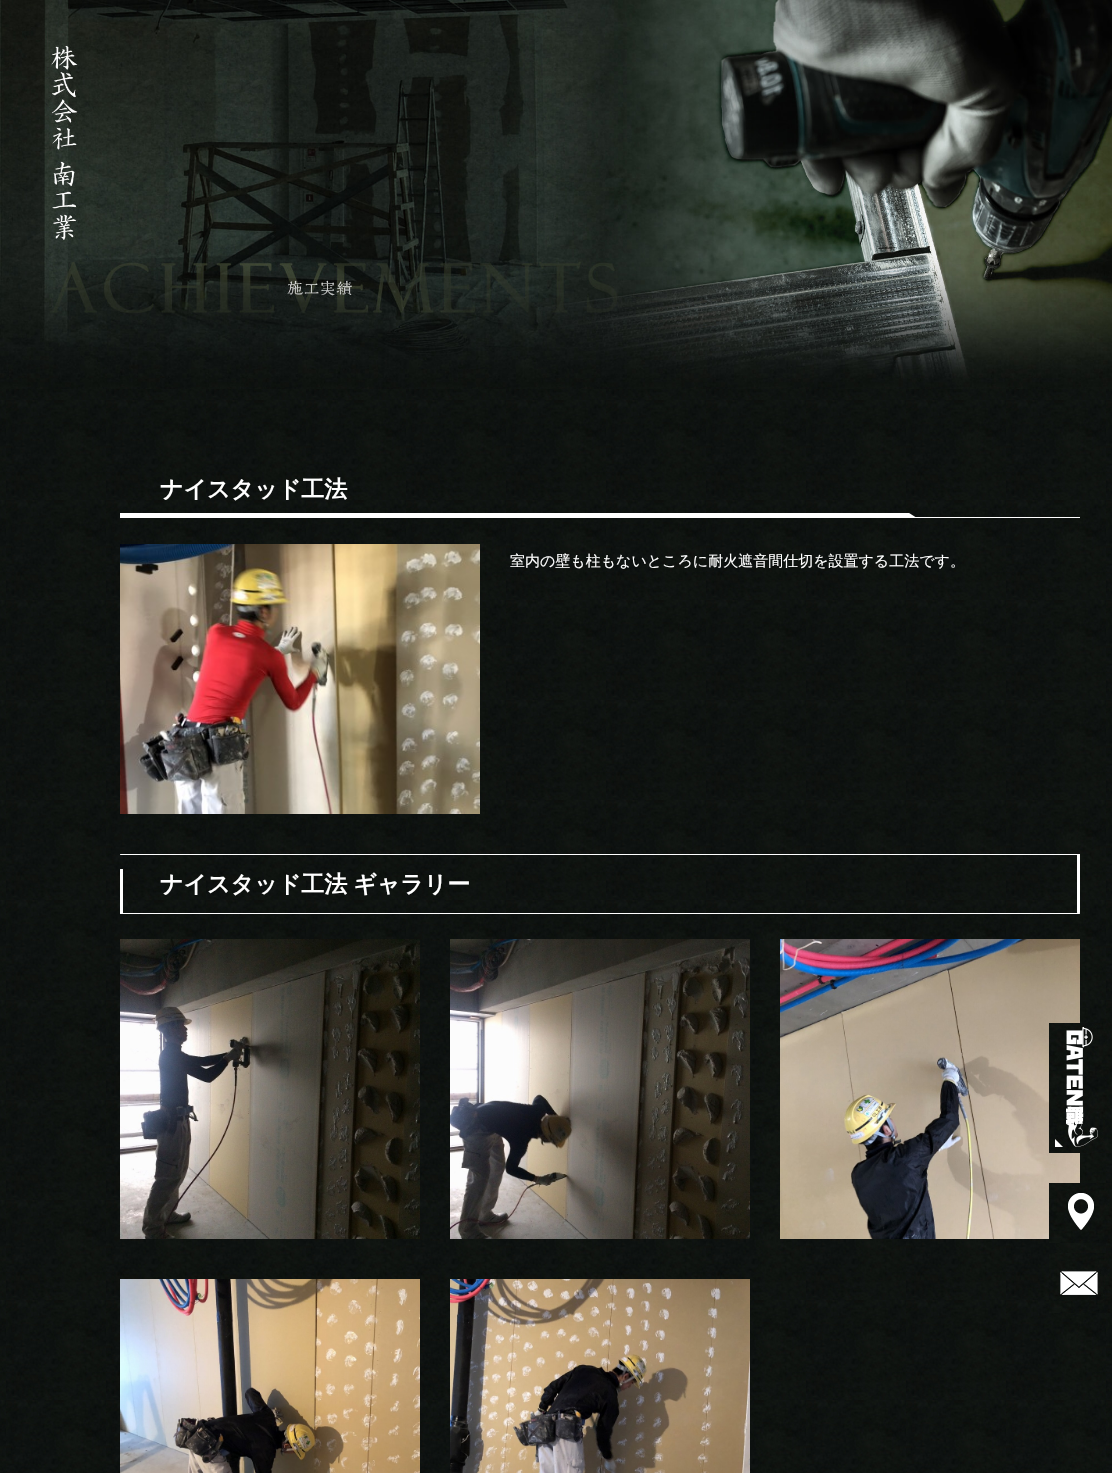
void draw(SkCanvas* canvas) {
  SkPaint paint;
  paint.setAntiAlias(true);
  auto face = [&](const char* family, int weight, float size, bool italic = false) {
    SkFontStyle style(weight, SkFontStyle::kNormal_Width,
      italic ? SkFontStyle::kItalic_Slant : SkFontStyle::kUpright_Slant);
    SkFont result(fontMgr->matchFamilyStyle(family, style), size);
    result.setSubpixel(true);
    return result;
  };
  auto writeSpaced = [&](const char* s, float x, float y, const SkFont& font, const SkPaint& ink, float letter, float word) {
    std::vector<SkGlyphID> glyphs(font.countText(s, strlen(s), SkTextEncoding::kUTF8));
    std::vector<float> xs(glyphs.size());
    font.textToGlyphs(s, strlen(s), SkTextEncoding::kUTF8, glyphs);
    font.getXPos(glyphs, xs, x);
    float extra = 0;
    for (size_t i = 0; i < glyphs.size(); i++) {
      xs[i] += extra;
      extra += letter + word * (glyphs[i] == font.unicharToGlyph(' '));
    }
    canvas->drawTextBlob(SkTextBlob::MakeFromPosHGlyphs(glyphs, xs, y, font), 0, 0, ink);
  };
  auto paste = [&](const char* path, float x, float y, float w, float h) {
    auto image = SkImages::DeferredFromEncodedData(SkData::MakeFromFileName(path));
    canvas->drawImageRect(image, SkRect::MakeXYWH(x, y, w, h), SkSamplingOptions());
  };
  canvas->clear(0xffffffff);
  paste("img/1.png", 0, 389, 1112, 1084);
  paste("img/2.png", 0, 0, 1112, 389);
  paste("img/3.png", 120, 513, 960, 5);
  paste("img/4.png", 120, 544, 360, 270);
  paste("img/5.png", 120, 854, 960, 60);
  paste("img/6.png", 120, 939, 300, 300);
  paste("img/7.png", 450, 939, 300, 300);
  paste("img/8.png", 780, 939, 300, 300);
  paste("img/9.png", 120, 1279, 300, 194);
  paste("img/10.png", 450, 1279, 300, 194);
  paste("img/11.png", 1049, 1023, 63, 130);
  paste("img/12.png", 1049, 1183, 63, 60);
  paste("img/13.png", 1049, 1253, 63, 60);
  auto f0 = face("WenQuanYi Zen Hei", 700, 23);
  paint.setColor(0xffffffff);
  canvas->drawString("ナイスタッド工法", 160, 497, f0, paint);
  auto f1 = face("WenQuanYi Zen Hei", 500, 15);
  canvas->drawString("室内の壁も柱もないところに耐火遮音間仕切を設置する工法です。", 510, 566, f1, paint);
  writeSpaced("ナイスタッド工法 ギャラリー", 160, 892, f0, paint, 0, -1);
}
